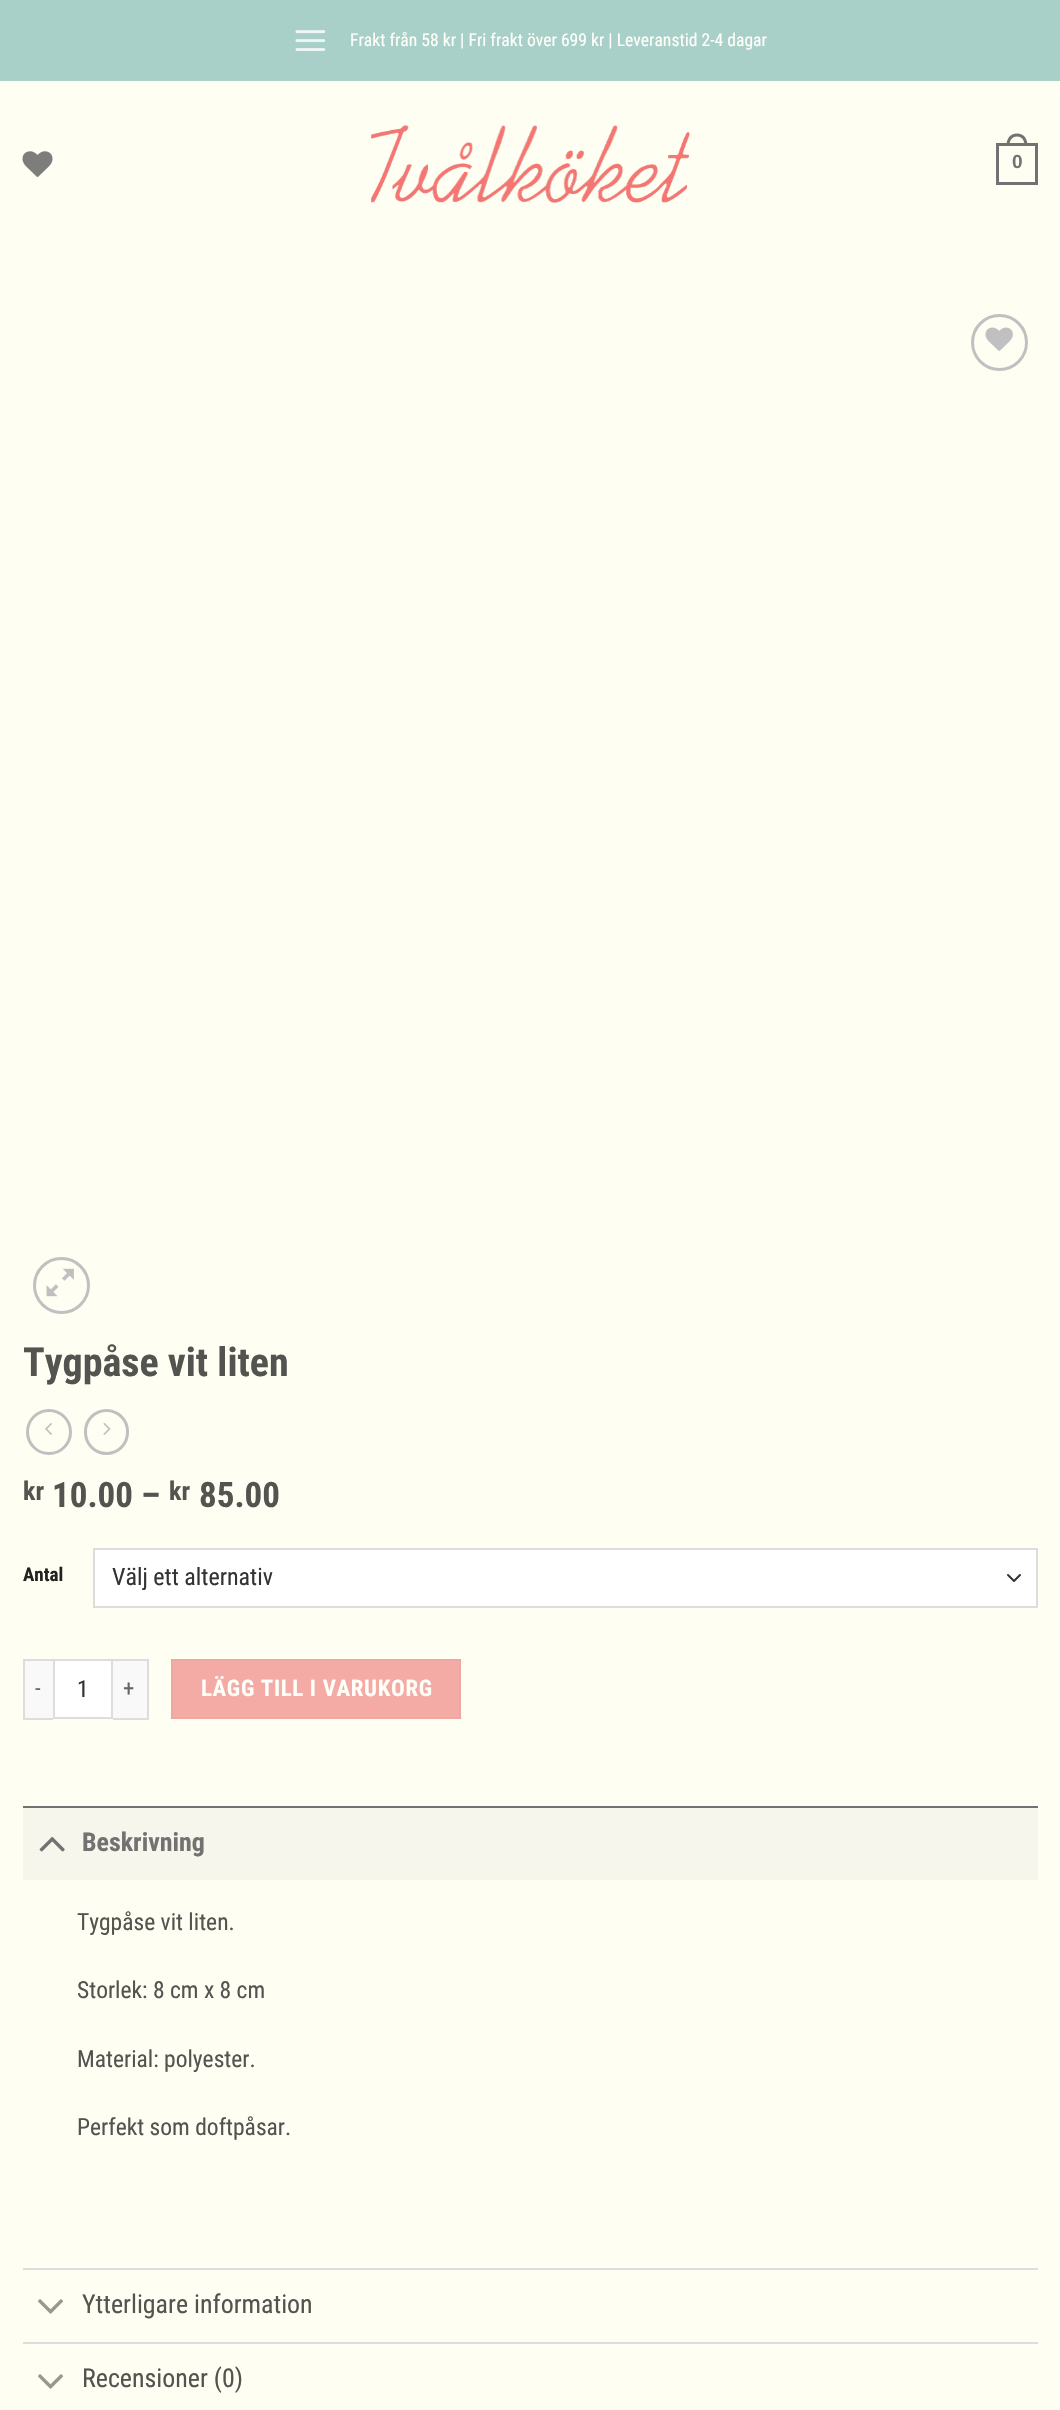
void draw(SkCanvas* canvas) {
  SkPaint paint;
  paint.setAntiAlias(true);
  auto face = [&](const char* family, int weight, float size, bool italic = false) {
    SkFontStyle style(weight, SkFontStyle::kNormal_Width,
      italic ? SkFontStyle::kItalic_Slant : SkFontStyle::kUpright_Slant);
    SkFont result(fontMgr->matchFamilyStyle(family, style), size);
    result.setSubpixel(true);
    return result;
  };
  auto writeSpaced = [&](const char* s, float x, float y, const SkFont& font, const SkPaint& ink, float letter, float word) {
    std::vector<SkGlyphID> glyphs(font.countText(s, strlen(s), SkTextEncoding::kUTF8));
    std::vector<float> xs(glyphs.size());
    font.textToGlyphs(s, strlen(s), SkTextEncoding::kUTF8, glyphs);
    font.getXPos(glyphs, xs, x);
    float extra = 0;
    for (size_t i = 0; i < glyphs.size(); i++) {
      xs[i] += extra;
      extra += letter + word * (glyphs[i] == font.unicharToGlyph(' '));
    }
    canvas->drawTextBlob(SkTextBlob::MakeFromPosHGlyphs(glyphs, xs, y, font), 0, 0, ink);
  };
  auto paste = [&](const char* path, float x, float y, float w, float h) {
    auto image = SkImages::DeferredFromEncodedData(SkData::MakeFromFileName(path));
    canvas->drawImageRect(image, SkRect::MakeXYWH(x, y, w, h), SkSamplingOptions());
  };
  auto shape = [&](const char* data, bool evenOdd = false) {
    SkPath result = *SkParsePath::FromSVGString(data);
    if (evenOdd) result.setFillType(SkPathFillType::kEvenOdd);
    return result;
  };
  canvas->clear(0xfffffef3);
  paint.setColor(0xffa9cfc9);
  canvas->drawRect(SkRect::MakeXYWH(0, 0, 1060, 81), paint);
  paste("img/1.png", 295, 30, 31, 21);
  paste("img/2.png", 22, 151, 31, 26);
  paste("img/3.png", 371, 125, 319, 78);
  paint.setStroke(true);
  paint.setStrokeWidth(3);
  paint.setColor(0xff727272);
  canvas->drawRect(SkRect::MakeXYWH(997.5f, 144.5f, 39, 39), paint);
  paint.setStroke(false);
  canvas->drawPath(shape("M1017 133.5C1024 133.5 1027.5 139 1027.5 145.5H1006.5C1006.5 139 1010 133.5 1017 133.5ZM1017 136.5C1022.5 136.5 1024.5 141 1024.5 145.5H1009.5C1009.5 141 1011.5 136.5 1017 136.5Z", true), paint);
  paint.setStroke(true);
  paint.setColor(0xffc0c0c0);
  canvas->drawCircle(999.5f, 342.5f, 27, paint);
  paste("img/4.png", 985, 327, 28, 24);
  canvas->drawCircle(61.5f, 1285.5f, 27, paint);
  paste("img/5.png", 46, 1268, 28, 29);
  canvas->drawCircle(49, 1432, 21.5f, paint);
  paste("img/6.png", 45, 1423, 7, 12);
  canvas->drawRoundRect(SkRect::MakeXYWH(85.5f, 1410.5f, 42, 43), 21, 21, paint);
  paste("img/7.png", 103, 1422, 8, 13);
  paint.setStroke(false);
  paint.setColor(0xffffffff);
  canvas->drawRect(SkRect::MakeXYWH(95, 1550, 941, 56), paint);
  paint.setStroke(true);
  paint.setStrokeWidth(2);
  paint.setStrokeCap(SkPaint::kRound_Cap);
  paint.setStrokeJoin(SkPaint::kRound_Join);
  paint.setColor(0xff333333);
  canvas->drawPath(shape("M1008 1575L1014 1581L1020 1575"), paint);
  paint.setStrokeCap(SkPaint::kButt_Cap);
  paint.setStrokeJoin(SkPaint::kMiter_Join);
  paint.setColor(0xffdddddd);
  canvas->drawRect(SkRect::MakeXYWH(94, 1549, 943, 58), paint);
  paint.setStroke(false);
  {
    const struct { float x, y, w, h; SkColor color; } items[] = {
      {25, 1661, 28, 57, 0xfff9f9f9},
      {23, 1659, 30, 2, 0xffdddddd},
      {23, 1718, 30, 2, 0xffdddddd},
      {23, 1659, 2, 60, 0xffdddddd},
    };
    for (auto [x, y, w, h, color] : items) {
      paint.setColor(color);
      canvas->drawRect(SkRect::MakeXYWH(x, y, w, h), paint);
    }
  }
  paint.setColor(0xffffffff);
  canvas->drawRect(SkRect::MakeXYWH(54, 1660, 58, 58), paint);
  paint.setStroke(true);
  paint.setColor(0xffdddddd);
  canvas->drawRect(SkRect::MakeXYWH(54, 1660, 58, 58), paint);
  paint.setStroke(false);
  {
    const struct { float x, y, w, h; SkColor color; } items[] = {
      {113, 1661, 34, 57, 0xfff9f9f9},
      {113, 1659, 36, 2, 0xffdddddd},
      {147, 1659, 2, 60, 0xffdddddd},
      {113, 1718, 36, 2, 0xffdddddd},
    };
    for (auto [x, y, w, h, color] : items) {
      paint.setColor(color);
      canvas->drawRect(SkRect::MakeXYWH(x, y, w, h), paint);
    }
  }
  paint.setColor(0xfff5aba5);
  canvas->drawRect(SkRect::MakeXYWH(172, 1660, 288, 58), paint);
  paint.setStroke(true);
  paint.setColor(0xffeea8a2);
  canvas->drawRect(SkRect::MakeXYWH(172, 1660, 288, 58), paint);
  paint.setStroke(false);
  paint.setColor(0xfff7f6ec);
  canvas->drawRect(SkRect::MakeXYWH(23, 1808, 1015, 72), paint);
  paint.setColor(0xff727272);
  canvas->drawRect(SkRect::MakeXYWH(23, 1806, 1015, 2), paint);
  paste("img/8.png", 39, 1836, 26, 16);
  paint.setColor(0xffdddddd);
  canvas->drawRect(SkRect::MakeXYWH(23, 2268, 1015, 2), paint);
  paste("img/9.png", 38, 2299, 25, 15);
  canvas->drawRect(SkRect::MakeXYWH(23, 2342, 1015, 2), paint);
  paste("img/9.png", 38, 2374, 25, 15);
  auto f0 = face("Roboto Condensed", 400, 17.6f);
  paint.setColor(0xfffffffa);
  canvas->drawString("Frakt från 58 kr | Fri frakt över 699 kr | Leveranstid 2-4 dagar", 350, 46, f0, paint);
  auto f1 = face("Liberation Sans", 700, 19);
  paint.setColor(0xff727272);
  canvas->drawString("0", 1012, 168, f1, paint);
  auto f2 = face("Roboto Condensed", 700, 40);
  paint.setColor(0xff535450);
  canvas->drawString("Tygpåse vit liten", 23, 1376, f2, paint);
  auto f3 = face("Roboto Condensed", 700, 26);
  canvas->drawString("kr", 23, 1500, f3, paint);
  auto f4 = face("Roboto Condensed", 700, 35);
  canvas->drawString("10.00 –", 52, 1507, f4, paint);
  canvas->drawString("kr", 169, 1500, f3, paint);
  canvas->drawString("85.00", 199, 1507, f4, paint);
  auto f5 = face("Roboto Condensed", 700, 19);
  paint.setColor(0xff222222);
  canvas->drawString("Antal", 23, 1581, f5, paint);
  auto f6 = face("Roboto Condensed", 400, 24);
  paint.setColor(0xff333333);
  canvas->drawString("Välj ett alternativ", 112, 1585, f6, paint);
  auto f7 = face("Roboto Condensed", 400, 22.75f);
  paint.setColor(0xff666666);
  writeSpaced("-", 35, 1696, f7, paint, 0.7f, 0);
  auto f8 = face("Roboto Condensed", 400, 23.5f);
  paint.setColor(0xff333333);
  canvas->drawString("1", 77, 1697, f8, paint);
  paint.setColor(0xff666666);
  writeSpaced("+", 123, 1696, f7, paint, 0.7f, 0);
  auto f9 = face("Roboto Condensed", 700, 22.75f);
  paint.setColor(0xfffffffa);
  writeSpaced("LÄGG TILL I VARUKORG", 201, 1696, f9, paint, 0.7f, 0);
  auto f10 = face("Roboto Condensed", 700, 25.9f);
  paint.setColor(0xff727272);
  canvas->drawString("Beskrivning", 82, 1851, f10, paint);
  paint.setColor(0xff535450);
  {
    const struct { const char* s; float x, y; } items[] = {
      {"Tygpåse vit liten.", 77, 1930},
      {"Storlek: 8 cm x 8 cm", 77, 1998},
      {"Material: polyester.", 77, 2067},
      {"Perfekt som doftpåsar.", 77, 2135},
    };
    for (auto [s, x, y] : items) {
      canvas->drawString(s, x, y, f8, paint);
    }
  }
  auto f11 = face("Roboto Condensed", 400, 25.9f);
  canvas->drawString("Ytterligare information", 82, 2313, f11, paint);
  canvas->drawString("Recensioner (0)", 82, 2387, f11, paint);
}
